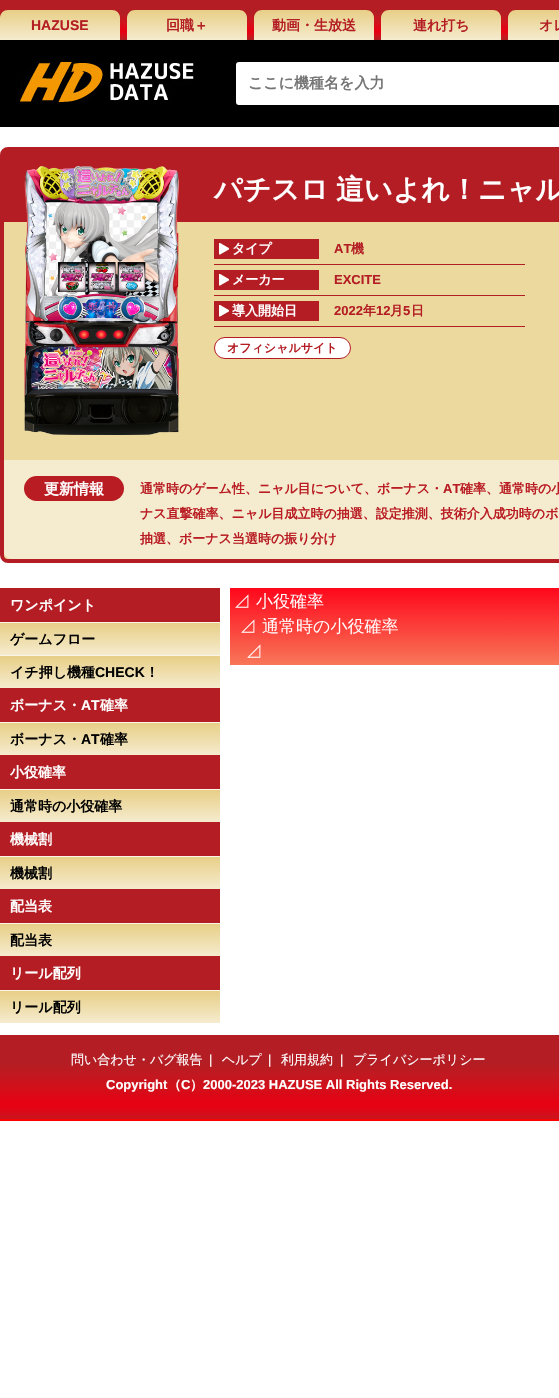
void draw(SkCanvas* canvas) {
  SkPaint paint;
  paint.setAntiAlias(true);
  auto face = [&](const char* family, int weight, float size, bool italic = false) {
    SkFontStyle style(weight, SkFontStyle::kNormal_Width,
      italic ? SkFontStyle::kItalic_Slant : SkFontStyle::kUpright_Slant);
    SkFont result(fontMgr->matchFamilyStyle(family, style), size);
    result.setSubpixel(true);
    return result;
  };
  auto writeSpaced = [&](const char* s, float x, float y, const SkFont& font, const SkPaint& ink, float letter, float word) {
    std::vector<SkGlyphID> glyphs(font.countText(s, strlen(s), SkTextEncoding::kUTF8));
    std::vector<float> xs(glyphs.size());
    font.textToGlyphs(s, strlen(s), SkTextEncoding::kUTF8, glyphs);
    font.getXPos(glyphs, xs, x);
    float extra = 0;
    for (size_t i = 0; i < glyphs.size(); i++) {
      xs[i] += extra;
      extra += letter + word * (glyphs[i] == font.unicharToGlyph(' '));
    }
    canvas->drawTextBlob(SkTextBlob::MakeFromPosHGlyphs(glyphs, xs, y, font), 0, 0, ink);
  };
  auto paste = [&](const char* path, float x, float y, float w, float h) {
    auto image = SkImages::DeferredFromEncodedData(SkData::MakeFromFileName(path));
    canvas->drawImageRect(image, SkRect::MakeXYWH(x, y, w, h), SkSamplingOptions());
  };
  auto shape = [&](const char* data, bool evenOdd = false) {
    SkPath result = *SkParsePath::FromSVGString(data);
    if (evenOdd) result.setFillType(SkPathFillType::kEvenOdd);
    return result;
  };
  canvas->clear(0xffffffff);
  paint.setColor(0xff000000);
  canvas->drawRect(SkRect::MakeXYWH(0, 40, 559, 87), paint);
  paste("img/1.png", 0, 0, 559, 40);
  {
    const SkColor colors[] = {0xffe8cf87, 0xfff5ebce};
    const float stops[] = {0, 1};
    const SkPoint ends[] = {{60, 10}, {60, 40}};
    paint.setShader(SkGradientShader::MakeLinear(ends, colors, stops, 2, SkTileMode::kClamp));
    paint.setAlpha(255);
  }
  canvas->drawPath(shape("M8 10H112C116.5 10 120 13.5 120 18V40H0V18C0 13.5 3.5 10 8 10Z"), paint);
  {
    const SkColor colors[] = {0xffe8cf87, 0xfff5ebce};
    const float stops[] = {0, 1};
    const SkPoint ends[] = {{187, 10}, {187, 40}};
    paint.setShader(SkGradientShader::MakeLinear(ends, colors, stops, 2, SkTileMode::kClamp));
    paint.setAlpha(255);
  }
  canvas->drawPath(shape("M135 10H239C243.5 10 247 13.5 247 18V40H127V18C127 13.5 130.5 10 135 10Z"), paint);
  {
    const SkColor colors[] = {0xffe8cf87, 0xfff5ebce};
    const float stops[] = {0, 1};
    const SkPoint ends[] = {{314, 10}, {314, 40}};
    paint.setShader(SkGradientShader::MakeLinear(ends, colors, stops, 2, SkTileMode::kClamp));
    paint.setAlpha(255);
  }
  canvas->drawPath(shape("M262 10H366C370.5 10 374 13.5 374 18V40H254V18C254 13.5 257.5 10 262 10Z"), paint);
  {
    const SkColor colors[] = {0xffe8cf87, 0xfff5ebce};
    const float stops[] = {0, 1};
    const SkPoint ends[] = {{441, 10}, {441, 40}};
    paint.setShader(SkGradientShader::MakeLinear(ends, colors, stops, 2, SkTileMode::kClamp));
    paint.setAlpha(255);
  }
  canvas->drawPath(shape("M389 10H493C497.5 10 501 13.5 501 18V40H381V18C381 13.5 384.5 10 389 10Z"), paint);
  {
    const SkColor colors[] = {0xffe8cf87, 0xfff5ebce};
    const float stops[] = {0, 1};
    const SkPoint ends[] = {{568, 10}, {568, 40}};
    paint.setShader(SkGradientShader::MakeLinear(ends, colors, stops, 2, SkTileMode::kClamp));
    paint.setAlpha(255);
  }
  canvas->drawPath(shape("M516 10H559C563.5 10 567 13.5 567 18V40H508V18C508 13.5 511.5 10 516 10Z"), paint);
  paste("img/2.png", 20, 62, 174, 40);
  paint.setShader(nullptr);
  paint.setColor(0xffffffff);
  canvas->drawRoundRect(SkRect::MakeXYWH(237, 63, 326, 41), 2, 2, paint);
  paint.setStroke(true);
  paint.setStrokeWidth(2);
  canvas->drawRoundRect(SkRect::MakeXYWH(237, 63, 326, 41), 2, 2, paint);
  paint.setStroke(false);
  paint.setColor(0xffecd99e);
  canvas->drawRoundRect(SkRect::MakeXYWH(2, 149, 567, 412), 6, 6, paint);
  paint.setStroke(true);
  paint.setStrokeWidth(4);
  paint.setColor(0xffb41d24);
  canvas->drawRoundRect(SkRect::MakeXYWH(2, 149, 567, 412), 6, 6, paint);
  paint.setStroke(false);
  canvas->drawRect(SkRect::MakeXYWH(4, 151, 555, 71), paint);
  paste("img/3.png", 24, 166, 155, 269);
  paint.setColor(0xffb01f24);
  canvas->drawRect(SkRect::MakeXYWH(214, 264, 311, 1), paint);
  paint.setColor(0xffb41d24);
  canvas->drawRect(SkRect::MakeXYWH(214, 239, 105, 20), paint);
  paste("img/4.png", 219, 243, 10, 12);
  paint.setColor(0xffb01f24);
  canvas->drawRect(SkRect::MakeXYWH(214, 295, 311, 1), paint);
  paint.setColor(0xffb41d24);
  canvas->drawRect(SkRect::MakeXYWH(214, 270, 105, 20), paint);
  paste("img/4.png", 219, 274, 10, 12);
  paint.setColor(0xffb01f24);
  canvas->drawRect(SkRect::MakeXYWH(214, 326, 311, 1), paint);
  paint.setColor(0xffb41d24);
  canvas->drawRect(SkRect::MakeXYWH(214, 301, 105, 20), paint);
  paste("img/4.png", 219, 305, 10, 12);
  paint.setColor(0xffffffff);
  canvas->drawRoundRect(SkRect::MakeXYWH(214.5f, 337.5f, 136, 21), 10.5f, 10.5f, paint);
  paint.setStroke(true);
  paint.setStrokeWidth(1);
  paint.setColor(0xffb51b23);
  canvas->drawRoundRect(SkRect::MakeXYWH(214.5f, 337.5f, 136, 21), 10.5f, 10.5f, paint);
  paint.setStroke(false);
  paint.setColor(0xfff5ebce);
  canvas->drawPath(shape("M4 460H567V551C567 555.5 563.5 559 559 559H12C7.5 559 4 555.5 4 551Z"), paint);
  paint.setColor(0xffb91c23);
  canvas->drawRoundRect(SkRect::MakeXYWH(24, 476, 100, 25), 12.5f, 12.5f, paint);
  paint.setColor(0xffb31d23);
  canvas->drawRect(SkRect::MakeXYWH(0, 588, 220, 34), paint);
  {
    const SkColor colors[] = {0xffe8cf87, 0xfff5ebce};
    const float stops[] = {0, 1};
    const SkPoint ends[] = {{110, 623}, {110, 655}};
    paint.setShader(SkGradientShader::MakeLinear(ends, colors, stops, 2, SkTileMode::kClamp));
    paint.setAlpha(255);
  }
  canvas->drawRect(SkRect::MakeXYWH(0, 623, 220, 32), paint);
  paint.setShader(nullptr);
  paint.setColor(0xfffaf5e7);
  canvas->drawRect(SkRect::MakeXYWH(0, 622, 220, 1), paint);
  {
    const SkColor colors[] = {0xffe8cf87, 0xfff5ebce};
    const float stops[] = {0, 1};
    const SkPoint ends[] = {{110, 656}, {110, 688}};
    paint.setShader(SkGradientShader::MakeLinear(ends, colors, stops, 2, SkTileMode::kClamp));
    paint.setAlpha(255);
  }
  canvas->drawRect(SkRect::MakeXYWH(0, 656, 220, 32), paint);
  paint.setShader(nullptr);
  paint.setColor(0xfffaf5e7);
  canvas->drawRect(SkRect::MakeXYWH(0, 655, 220, 1), paint);
  paint.setColor(0xffb31d23);
  canvas->drawRect(SkRect::MakeXYWH(0, 688, 220, 34), paint);
  {
    const SkColor colors[] = {0xffe8cf87, 0xfff5ebce};
    const float stops[] = {0, 1};
    const SkPoint ends[] = {{110, 723}, {110, 755}};
    paint.setShader(SkGradientShader::MakeLinear(ends, colors, stops, 2, SkTileMode::kClamp));
    paint.setAlpha(255);
  }
  canvas->drawRect(SkRect::MakeXYWH(0, 723, 220, 32), paint);
  paint.setShader(nullptr);
  paint.setColor(0xfffaf5e7);
  canvas->drawRect(SkRect::MakeXYWH(0, 722, 220, 1), paint);
  paint.setColor(0xffb31d23);
  canvas->drawRect(SkRect::MakeXYWH(0, 755, 220, 34), paint);
  {
    const SkColor colors[] = {0xffe8cf87, 0xfff5ebce};
    const float stops[] = {0, 1};
    const SkPoint ends[] = {{110, 790}, {110, 822}};
    paint.setShader(SkGradientShader::MakeLinear(ends, colors, stops, 2, SkTileMode::kClamp));
    paint.setAlpha(255);
  }
  canvas->drawRect(SkRect::MakeXYWH(0, 790, 220, 32), paint);
  paint.setShader(nullptr);
  paint.setColor(0xfffaf5e7);
  canvas->drawRect(SkRect::MakeXYWH(0, 789, 220, 1), paint);
  paint.setColor(0xffb31d23);
  canvas->drawRect(SkRect::MakeXYWH(0, 822, 220, 34), paint);
  {
    const SkColor colors[] = {0xffe8cf87, 0xfff5ebce};
    const float stops[] = {0, 1};
    const SkPoint ends[] = {{110, 857}, {110, 889}};
    paint.setShader(SkGradientShader::MakeLinear(ends, colors, stops, 2, SkTileMode::kClamp));
    paint.setAlpha(255);
  }
  canvas->drawRect(SkRect::MakeXYWH(0, 857, 220, 32), paint);
  paint.setShader(nullptr);
  paint.setColor(0xfffaf5e7);
  canvas->drawRect(SkRect::MakeXYWH(0, 856, 220, 1), paint);
  paint.setColor(0xffb31d23);
  canvas->drawRect(SkRect::MakeXYWH(0, 889, 220, 34), paint);
  {
    const SkColor colors[] = {0xffe8cf87, 0xfff5ebce};
    const float stops[] = {0, 1};
    const SkPoint ends[] = {{110, 924}, {110, 956}};
    paint.setShader(SkGradientShader::MakeLinear(ends, colors, stops, 2, SkTileMode::kClamp));
    paint.setAlpha(255);
  }
  canvas->drawRect(SkRect::MakeXYWH(0, 924, 220, 32), paint);
  paint.setShader(nullptr);
  paint.setColor(0xfffaf5e7);
  canvas->drawRect(SkRect::MakeXYWH(0, 923, 220, 1), paint);
  paint.setColor(0xffb31d23);
  canvas->drawRect(SkRect::MakeXYWH(0, 956, 220, 34), paint);
  {
    const SkColor colors[] = {0xffe8cf87, 0xfff5ebce};
    const float stops[] = {0, 1};
    const SkPoint ends[] = {{110, 991}, {110, 1023}};
    paint.setShader(SkGradientShader::MakeLinear(ends, colors, stops, 2, SkTileMode::kClamp));
    paint.setAlpha(255);
  }
  canvas->drawRect(SkRect::MakeXYWH(0, 991, 220, 32), paint);
  paint.setShader(nullptr);
  paint.setColor(0xfffaf5e7);
  canvas->drawRect(SkRect::MakeXYWH(0, 990, 220, 1), paint);
  paste("img/5.png", 230, 588, 329, 77);
  paste("img/6.png", 0, 1035, 559, 86);
  auto f0 = face("Liberation Sans", 700, 14);
  paint.setColor(0xffb31d23);
  canvas->drawString("HAZUSE", 31, 30, f0, paint);
  auto f1 = face("WenQuanYi Zen Hei", 700, 14);
  {
    const struct { const char* s; float x, y; } items[] = {
      {"回職＋", 166, 30},
      {"動画・生放送", 272, 30},
      {"連れ打ち", 413, 30},
      {"オレ", 539, 30},
    };
    for (auto [s, x, y] : items) {
      canvas->drawString(s, x, y, f1, paint);
    }
  }
  auto f2 = face("WenQuanYi Zen Hei", 700, 15);
  paint.setColor(0xff757575);
  canvas->drawString("ここに機種名を入力", 248, 88, f2, paint);
  auto f3 = face("WenQuanYi Zen Hei", 700, 28);
  paint.setColor(0xffffffff);
  writeSpaced("パチスロ 這いよれ！ニャル", 214, 199, f3, paint, 0, -1);
  auto f4 = face("WenQuanYi Zen Hei", 700, 13);
  canvas->drawString("タイプ", 232, 253, f4, paint);
  auto f5 = face("Liberation Sans", 700, 13);
  paint.setColor(0xffb31d23);
  canvas->drawString("AT", 334, 253, f5, paint);
  canvas->drawString("機", 351, 253, f4, paint);
  paint.setColor(0xffffffff);
  canvas->drawString("メーカー", 232, 284, f4, paint);
  paint.setColor(0xffb31d23);
  canvas->drawString("EXCITE", 334, 284, f5, paint);
  paint.setColor(0xffffffff);
  canvas->drawString("導入開始日", 232, 315, f4, paint);
  paint.setColor(0xffb31d23);
  canvas->drawString("2022", 334, 315, f5, paint);
  canvas->drawString("年", 363, 315, f4, paint);
  canvas->drawString("12", 376, 315, f5, paint);
  canvas->drawString("月", 390, 315, f4, paint);
  canvas->drawString("5", 403, 315, f5, paint);
  canvas->drawString("日", 411, 315, f4, paint);
  auto f6 = face("WenQuanYi Zen Hei", 700, 12);
  canvas->drawString("オフィシャルサイト", 227, 352, f6, paint);
  paint.setColor(0xffffffff);
  canvas->drawString("更新情報", 44, 494, f2, paint);
  paint.setColor(0xffb91c23);
  canvas->drawString("通常時のゲーム性、ニャル目について、ボーナス・", 140, 493, f4, paint);
  canvas->drawString("AT", 443, 493, f5, paint);
  {
    const struct { const char* s; float x, y; } items[] = {
      {"確率、通常時の小", 460, 493},
      {"ナス直撃確率、ニャル目成立時の抽選、設定推測、技術介入成功時のボ", 140, 518},
      {"抽選、ボーナス当選時の振り分け", 140, 543},
    };
    for (auto [s, x, y] : items) {
      canvas->drawString(s, x, y, f4, paint);
    }
  }
  paint.setColor(0xffffffff);
  canvas->drawString("ワンポイント", 10, 610, f1, paint);
  paint.setColor(0xff000000);
  canvas->drawString("ゲームフロー", 10, 644, f1, paint);
  canvas->drawString("イチ押し機種", 10, 677, f1, paint);
  canvas->drawString("CHECK", 95, 677, f0, paint);
  canvas->drawString("！", 145, 677, f1, paint);
  paint.setColor(0xffffffff);
  canvas->drawString("ボーナス・", 10, 710, f1, paint);
  canvas->drawString("AT", 81, 710, f0, paint);
  canvas->drawString("確率", 100, 710, f1, paint);
  paint.setColor(0xff000000);
  canvas->drawString("ボーナス・", 10, 744, f1, paint);
  canvas->drawString("AT", 81, 744, f0, paint);
  canvas->drawString("確率", 100, 744, f1, paint);
  paint.setColor(0xffffffff);
  canvas->drawString("小役確率", 10, 777, f1, paint);
  paint.setColor(0xff000000);
  canvas->drawString("通常時の小役確率", 10, 811, f1, paint);
  paint.setColor(0xffffffff);
  canvas->drawString("機械割", 10, 844, f1, paint);
  paint.setColor(0xff000000);
  canvas->drawString("機械割", 10, 878, f1, paint);
  paint.setColor(0xffffffff);
  canvas->drawString("配当表", 10, 911, f1, paint);
  paint.setColor(0xff000000);
  canvas->drawString("配当表", 10, 945, f1, paint);
  paint.setColor(0xffffffff);
  canvas->drawString("リール配列", 10, 978, f1, paint);
  paint.setColor(0xff000000);
  canvas->drawString("リール配列", 10, 1012, f1, paint);
  auto f7 = face("WenQuanYi Zen Hei", 500, 13);
  paint.setColor(0xffffffff);
  canvas->drawString("問い合わせ・バグ報告", 71, 1064, f7, paint);
  auto f8 = face("Liberation Sans", 400, 13);
  canvas->drawString("|", 209, 1064, f8, paint);
  canvas->drawString("ヘルプ", 222, 1064, f7, paint);
  canvas->drawString("|", 268, 1064, f8, paint);
  canvas->drawString("利用規約", 281, 1064, f7, paint);
  canvas->drawString("|", 340, 1064, f8, paint);
  canvas->drawString("プライバシーポリシー", 353, 1064, f7, paint);
  canvas->drawString("Copyright", 106, 1089, f5, paint);
  canvas->drawString("（", 168, 1089, f4, paint);
  canvas->drawString("C", 181, 1089, f5, paint);
  canvas->drawString("）", 190, 1089, f4, paint);
  canvas->drawString("2000-2023 HAZUSE All Rights Reserved.", 203, 1089, f5, paint);
}
